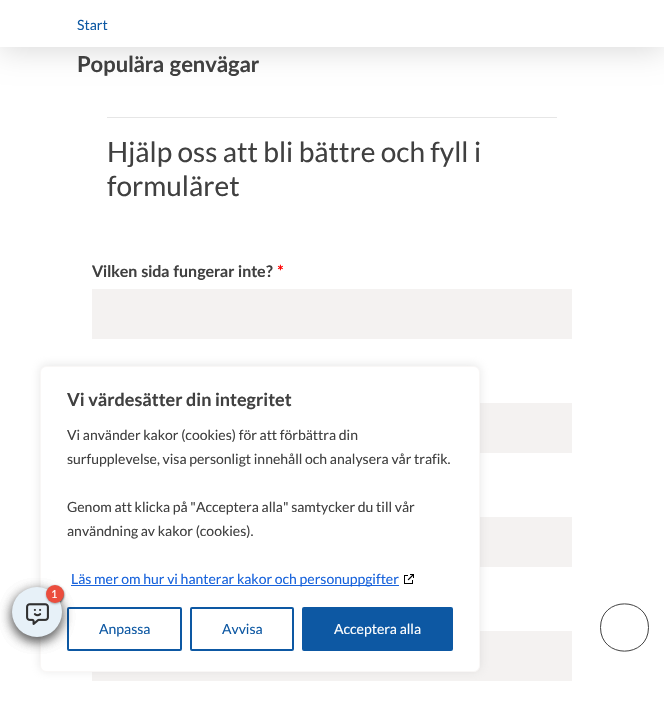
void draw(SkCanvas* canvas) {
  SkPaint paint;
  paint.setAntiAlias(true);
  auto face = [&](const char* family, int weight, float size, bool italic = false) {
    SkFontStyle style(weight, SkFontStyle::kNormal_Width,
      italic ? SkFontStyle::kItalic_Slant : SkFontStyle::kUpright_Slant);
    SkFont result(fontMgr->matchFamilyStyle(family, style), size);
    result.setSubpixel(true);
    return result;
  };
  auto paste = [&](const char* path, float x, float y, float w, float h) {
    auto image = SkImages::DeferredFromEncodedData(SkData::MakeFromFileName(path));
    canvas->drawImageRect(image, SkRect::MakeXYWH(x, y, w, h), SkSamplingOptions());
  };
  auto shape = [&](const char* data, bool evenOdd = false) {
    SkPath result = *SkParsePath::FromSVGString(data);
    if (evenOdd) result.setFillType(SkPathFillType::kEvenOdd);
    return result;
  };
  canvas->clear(0xffffffff);
  paint.setColor(0x26000000);
  paint.setMaskFilter(SkMaskFilter::MakeBlur(kNormal_SkBlurStyle, 15));
  canvas->drawRect(SkRect::MakeXYWH(0, 3, 664, 47), paint);
  paint.setMaskFilter(nullptr);
  {
    const struct { float x, y, w, h; SkColor color; } items[] = {
      {0, 0, 664, 47, 0xffffffff},
      {107, 117, 450, 1, 0xffe6e6e6},
      {92, 289, 480, 50, 0xfff4f2f1},
      {480, 403, 92, 50, 0xfff4f2f1},
      {480, 517, 92, 50, 0xfff4f2f1},
      {92, 631, 480, 50, 0xfff4f2f1},
    };
    for (auto [x, y, w, h, color] : items) {
      paint.setColor(color);
      canvas->drawRect(SkRect::MakeXYWH(x, y, w, h), paint);
    }
  }
  paint.setColor(0x4dacabab);
  paint.setMaskFilter(SkMaskFilter::MakeBlur(kNormal_SkBlurStyle, 5));
  canvas->drawRoundRect(SkRect::MakeXYWH(40, 365, 440, 306), 6, 6, paint);
  paint.setMaskFilter(nullptr);
  paint.setColor(0xffffffff);
  canvas->drawRoundRect(SkRect::MakeXYWH(40.5f, 366.5f, 439, 305), 5.5f, 5.5f, paint);
  paint.setStroke(true);
  paint.setStrokeWidth(1);
  paint.setColor(0xfff9f7f6);
  canvas->drawRoundRect(SkRect::MakeXYWH(40.5f, 366.5f, 439, 305), 5.5f, 5.5f, paint);
  paint.setStroke(false);
  paint.setColor(0xff1863dc);
  canvas->drawRect(SkRect::MakeXYWH(71, 585, 328, 1), paint);
  paint.setStroke(true);
  paint.setStrokeWidth(2);
  paint.setColor(0xff0d58a3);
  canvas->drawRoundRect(SkRect::MakeXYWH(68, 608, 113, 42), 1, 1, paint);
  paint.setStroke(false);
  paint.setColor(0x4d000000);
  paint.setMaskFilter(SkMaskFilter::MakeBlur(kNormal_SkBlurStyle, 6));
  canvas->drawRoundRect(SkRect::MakeXYWH(12, 591, 50, 50), 25, 25, paint);
  paint.setMaskFilter(nullptr);
  paint.setMaskFilter(SkMaskFilter::MakeBlur(kNormal_SkBlurStyle, 1));
  canvas->drawRoundRect(SkRect::MakeXYWH(46, 586, 18, 18), 9, 9, paint);
  paint.setMaskFilter(nullptr);
  paste("img/1.png", 404, 574, 10, 10);
  paint.setStroke(true);
  paint.setColor(0xff0d58a3);
  canvas->drawRoundRect(SkRect::MakeXYWH(191, 608, 102, 42), 1, 1, paint);
  paint.setStroke(false);
  canvas->drawRoundRect(SkRect::MakeXYWH(303, 608, 149, 42), 1, 1, paint);
  paint.setStroke(true);
  canvas->drawRoundRect(SkRect::MakeXYWH(303, 608, 149, 42), 1, 1, paint);
  paint.setStroke(false);
  paint.setColor(0x4d000000);
  paint.setMaskFilter(SkMaskFilter::MakeBlur(kNormal_SkBlurStyle, 6));
  canvas->drawRoundRect(SkRect::MakeXYWH(12, 591, 50, 50), 25, 25, paint);
  paint.setMaskFilter(nullptr);
  paint.setMaskFilter(SkMaskFilter::MakeBlur(kNormal_SkBlurStyle, 1));
  canvas->drawRoundRect(SkRect::MakeXYWH(46, 586, 18, 18), 9, 9, paint);
  paint.setMaskFilter(nullptr);
  paint.setMaskFilter(SkMaskFilter::MakeBlur(kNormal_SkBlurStyle, 6));
  canvas->drawRoundRect(SkRect::MakeXYWH(12, 591, 50, 50), 25, 25, paint);
  paint.setMaskFilter(nullptr);
  paint.setColor(0xffe7f1f8);
  canvas->drawCircle(37, 612, 25, paint);
  paste("img/2.png", 26, 603, 23, 22);
  paint.setColor(0x4d000000);
  paint.setMaskFilter(SkMaskFilter::MakeBlur(kNormal_SkBlurStyle, 1));
  canvas->drawRoundRect(SkRect::MakeXYWH(46, 586, 18, 18), 9, 9, paint);
  paint.setMaskFilter(nullptr);
  paint.setColor(0xffeb4d3d);
  canvas->drawCircle(55, 594, 9, paint);
  paint.setStroke(true);
  paint.setStrokeWidth(1);
  paint.setColor(0xff404040);
  canvas->drawPath(shape("M600.5 627.5C600.5 596 648.5 596 648.5 627.5C648.5 659 600.5 659 600.5 627.5Z"), paint);
  auto f0 = face("Lato", 400, 14);
  paint.setStroke(false);
  paint.setColor(0xff0d58a3);
  canvas->drawString("Start", 77, 30, f0, paint);
  auto f1 = face("Lato", 700, 22);
  paint.setColor(0xff404040);
  canvas->drawString("Populära genvägar", 77, 72, f1, paint);
  auto f2 = face("Lato", 400, 28);
  canvas->drawString("Hjälp oss att bli bättre och fyll i", 107, 162, f2, paint);
  canvas->drawString("formuläret", 107, 196, f2, paint);
  auto f3 = face("Lato", 700, 16);
  canvas->drawString("Vilken sida fungerar inte?", 92, 277, f3, paint);
  paint.setColor(0xffff0000);
  canvas->drawString("*", 277, 277, f3, paint);
  auto f4 = face("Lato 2", 700, 18);
  paint.setColor(0xff404040);
  canvas->drawString("Vi värdesätter din integritet", 67, 406, f4, paint);
  {
    const struct { const char* s; float x, y; } items[] = {
      {"Vi använder kakor (cookies) för att förbättra din", 67, 440},
      {"surfupplevelse, visa personligt innehåll och analysera vår trafik.", 67, 464},
      {"Genom att klicka på \"Acceptera alla\" samtycker du till vår", 67, 512},
      {"användning av kakor (cookies).", 67, 536},
    };
    for (auto [s, x, y] : items) {
      canvas->drawString(s, x, y, f0, paint);
    }
  }
  paint.setColor(0xff1863dc);
  canvas->drawString("Läs mer om hur vi hanterar kakor och personuppgifter", 71, 584, f0, paint);
  paint.setColor(0xff0d58a3);
  canvas->drawString("Anpassa", 99, 634, f0, paint);
  canvas->drawString("Avvisa", 222, 634, f0, paint);
  paint.setColor(0xffffffff);
  canvas->drawString("Acceptera alla", 334, 634, f0, paint);
  auto f5 = face("Lato", 400, 11);
  canvas->drawString("1", 51, 598, f5, paint);
}
